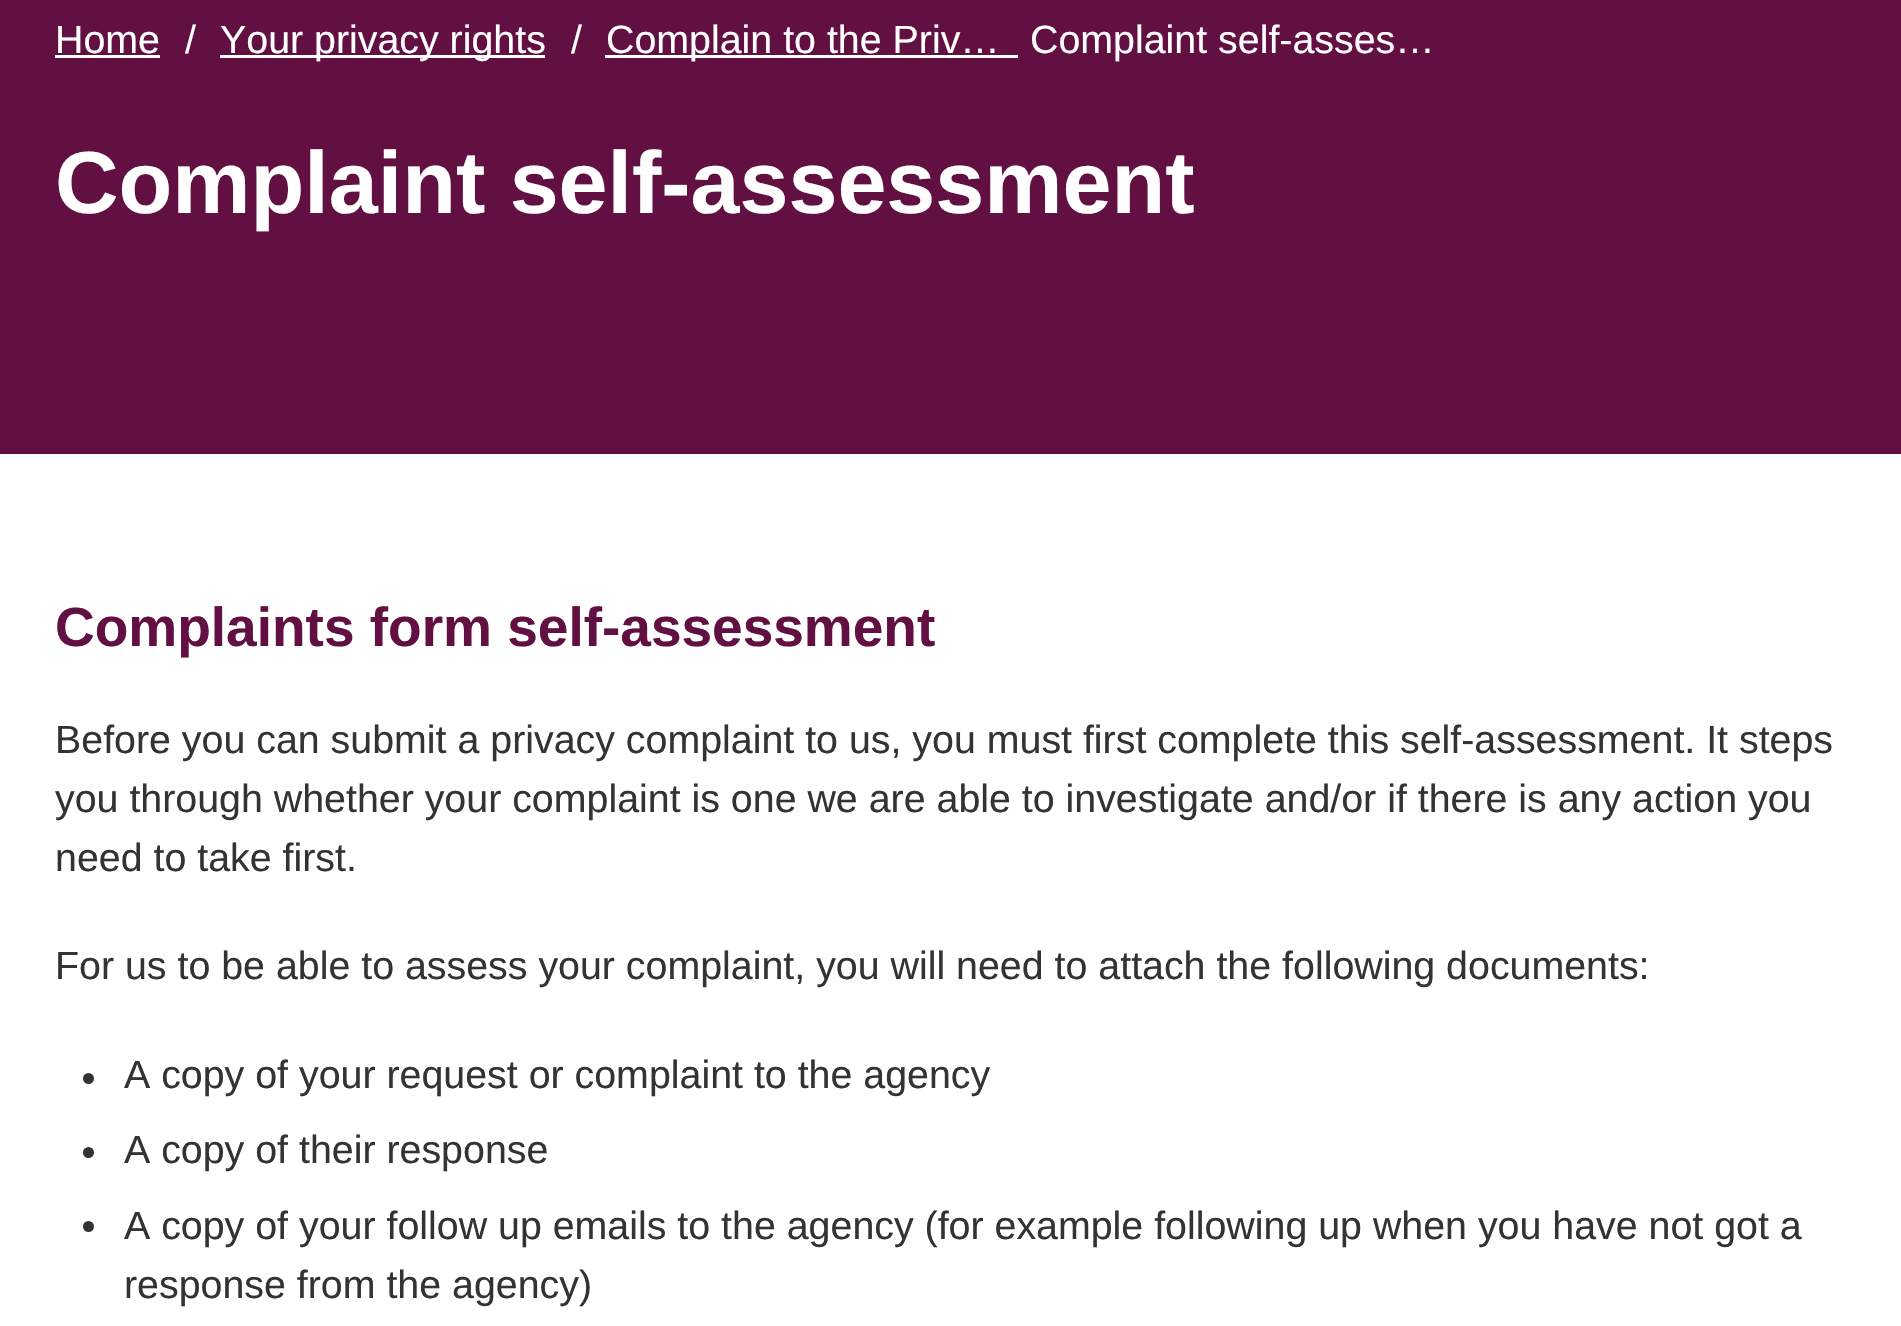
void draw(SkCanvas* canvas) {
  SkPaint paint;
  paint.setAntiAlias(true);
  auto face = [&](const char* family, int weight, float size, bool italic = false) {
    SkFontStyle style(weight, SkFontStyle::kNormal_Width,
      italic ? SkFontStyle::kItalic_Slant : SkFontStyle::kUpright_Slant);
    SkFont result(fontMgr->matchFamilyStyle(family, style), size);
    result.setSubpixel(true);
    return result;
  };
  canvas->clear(0xffffffff);
  {
    const struct { float x, y, w, h; SkColor color; } items[] = {
      {0, 0, 1901, 454, 0xff621042},
      {55, 55, 105, 3, 0xffffffff},
      {220, 55, 325, 3, 0xffffffff},
      {605, 55, 413, 3, 0xffffffff},
    };
    for (auto [x, y, w, h, color] : items) {
      paint.setColor(color);
      canvas->drawRect(SkRect::MakeXYWH(x, y, w, h), paint);
    }
  }
  paint.setColor(0xff333333);
  canvas->drawCircle(88.5f, 1078.5f, 5.5f, paint);
  canvas->drawCircle(88.5f, 1152.5f, 5.5f, paint);
  canvas->drawCircle(88.5f, 1226.5f, 5.5f, paint);
  auto f0 = face("Liberation Sans", 400, 39.35f);
  paint.setColor(0xffffffff);
  {
    const struct { const char* s; float x, y; } items[] = {
      {"Home", 55, 53},
      {"/", 185, 53},
      {"Your privacy rights", 220, 53},
      {"/", 571, 53},
      {"Complain to the Priv…", 606, 53},
      {"Complaint self-asses…", 1030, 53},
    };
    for (auto [s, x, y] : items) {
      canvas->drawString(s, x, y, f0, paint);
    }
  }
  auto f1 = face("Liberation Sans", 700, 88);
  canvas->drawString("Complaint self-assessment", 55, 213, f1, paint);
  auto f2 = face("Liberation Sans", 700, 55);
  paint.setColor(0xff621042);
  canvas->drawString("Complaints form self-assessment", 55, 646, f2, paint);
  paint.setColor(0xff333333);
  {
    const struct { const char* s; float x, y; } items[] = {
      {"Before you can submit a privacy complaint to us, you must first complete this self-assessment. It steps", 55, 753},
      {"you through whether your complaint is one we are able to investigate and/or if there is any action you", 55, 812},
      {"need to take first.", 55, 871},
      {"For us to be able to assess your complaint, you will need to attach the following documents:", 55, 979},
      {"A copy of your request or complaint to the agency", 124, 1088},
      {"A copy of their response", 124, 1163},
      {"A copy of your follow up emails to the agency (for example following up when you have not got a", 124, 1239},
      {"response from the agency)", 124, 1298},
    };
    for (auto [s, x, y] : items) {
      canvas->drawString(s, x, y, f0, paint);
    }
  }
}
